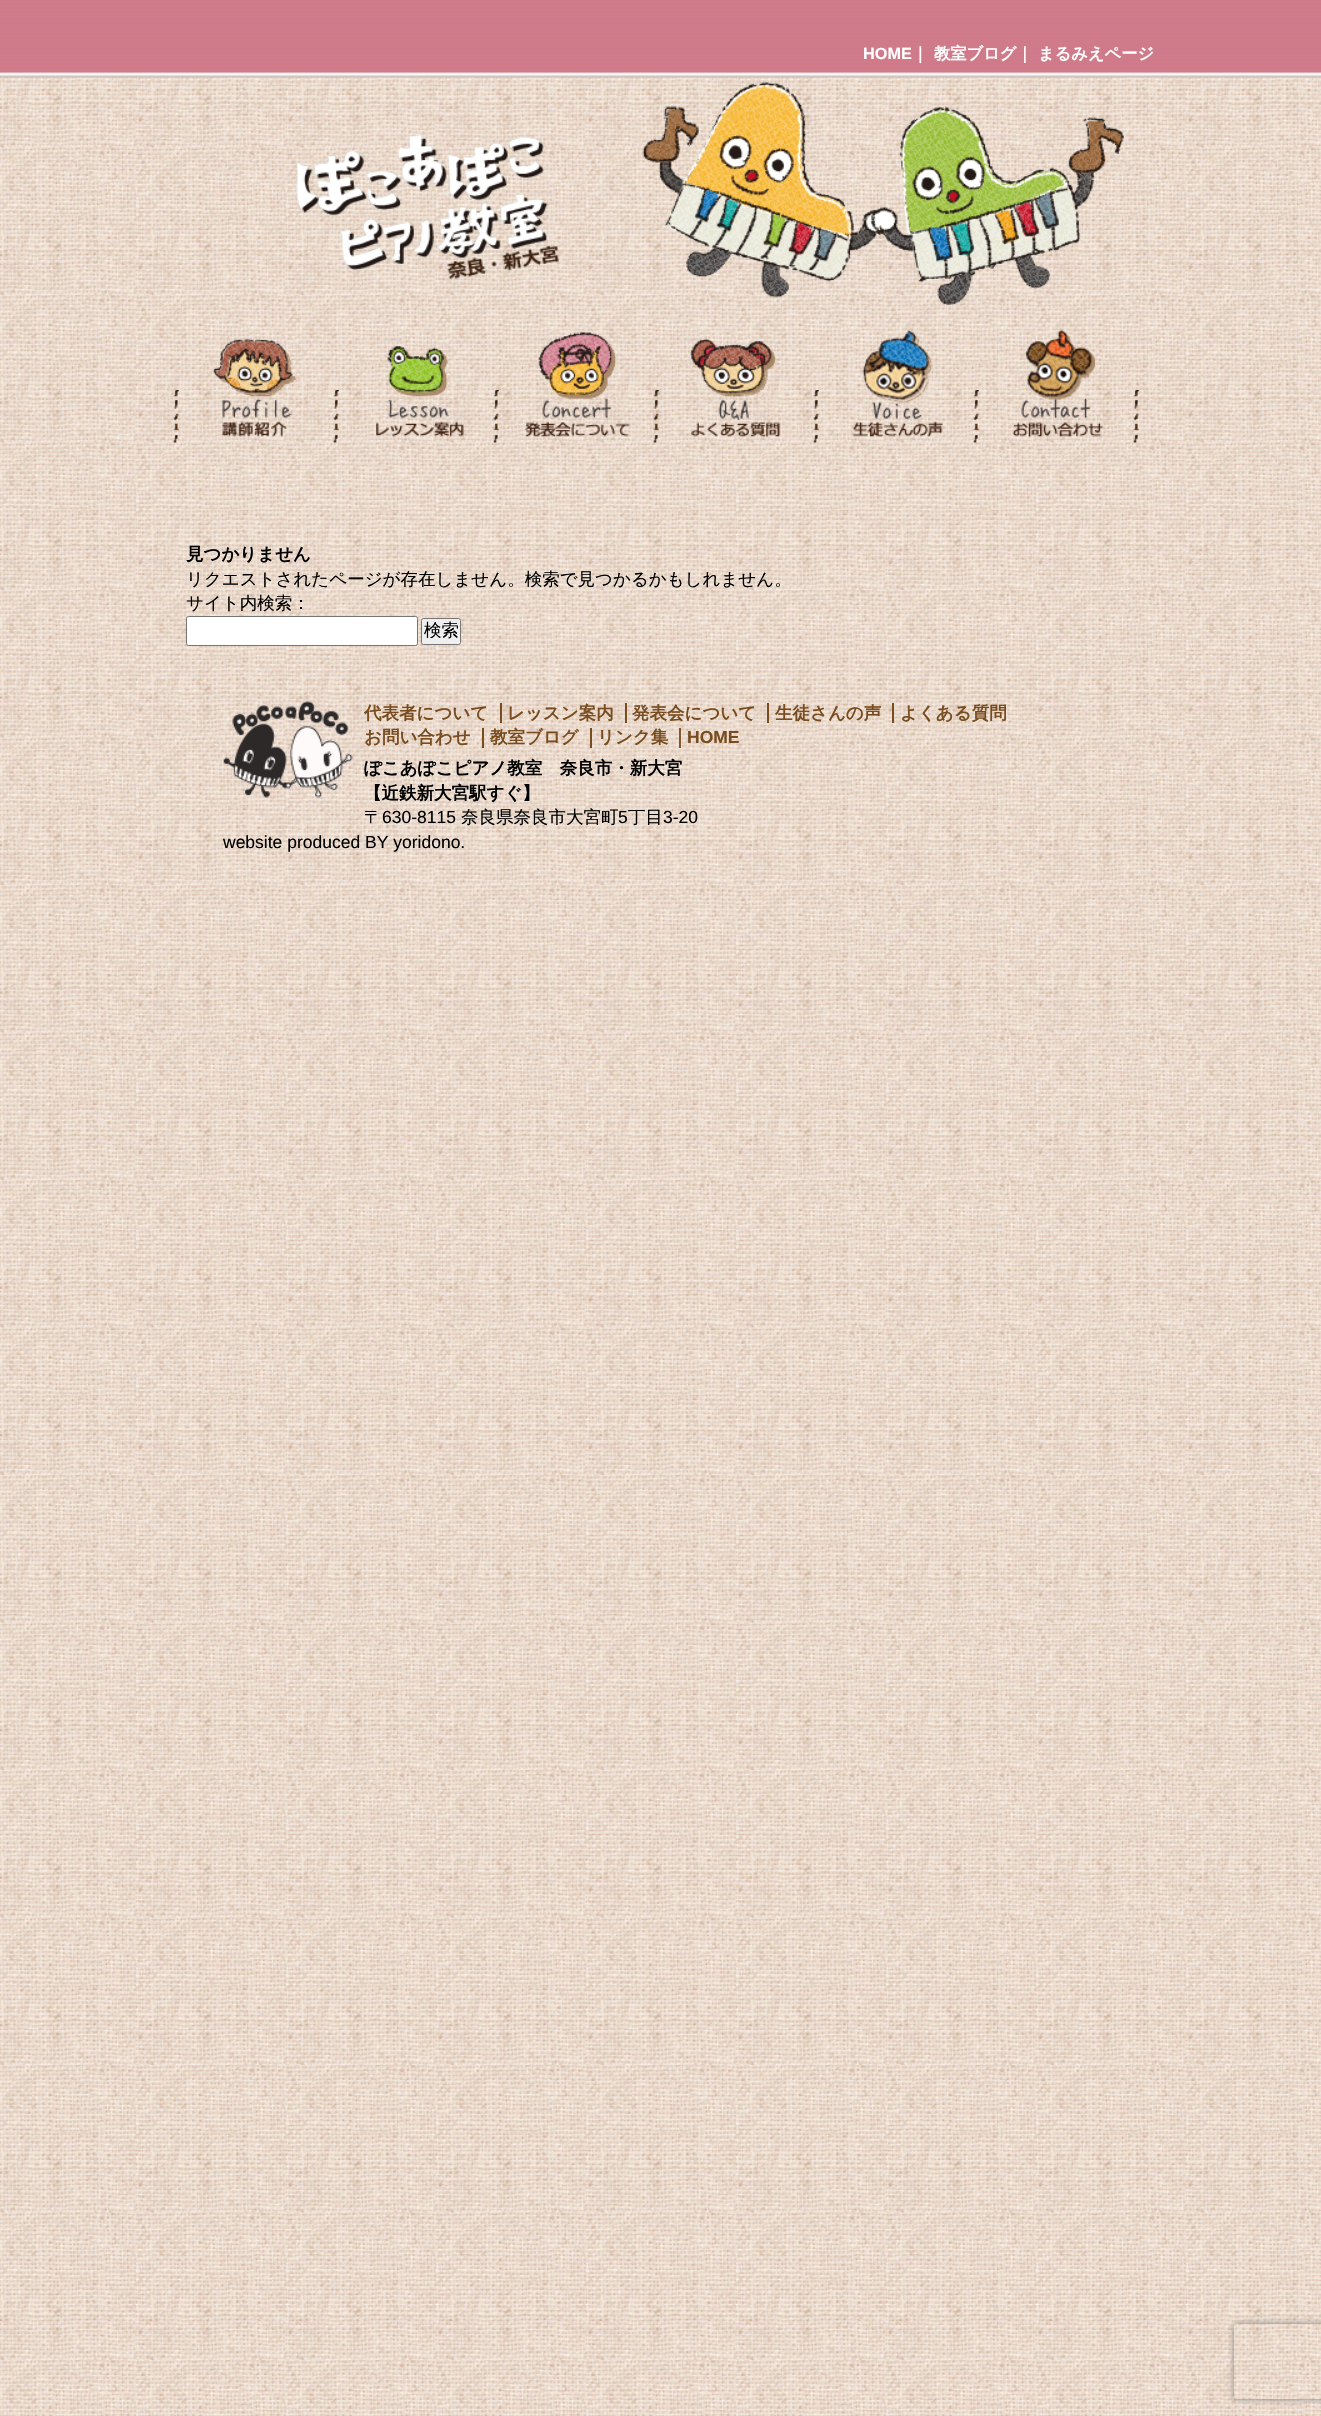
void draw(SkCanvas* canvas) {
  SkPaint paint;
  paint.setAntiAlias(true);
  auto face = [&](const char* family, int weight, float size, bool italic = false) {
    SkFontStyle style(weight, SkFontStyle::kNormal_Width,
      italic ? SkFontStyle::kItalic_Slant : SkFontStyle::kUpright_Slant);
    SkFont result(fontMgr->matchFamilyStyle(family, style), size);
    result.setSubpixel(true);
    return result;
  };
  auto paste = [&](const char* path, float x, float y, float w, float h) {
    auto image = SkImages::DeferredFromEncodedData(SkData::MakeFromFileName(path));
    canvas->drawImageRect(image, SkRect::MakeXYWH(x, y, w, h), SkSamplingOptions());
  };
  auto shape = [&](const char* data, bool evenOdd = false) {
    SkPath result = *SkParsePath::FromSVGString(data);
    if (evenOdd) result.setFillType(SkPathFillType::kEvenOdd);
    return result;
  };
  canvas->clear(0xffffffff);
  paste("img/1.png", 0, 77, 1321, 2339);
  paste("img/2.png", 0, 0, 1321, 78);
  paste("img/3.png", 296, 135, 263, 144);
  paste("img/4.png", 642, 82, 482, 223);
  paste("img/5.png", 173, 390, 6, 53);
  paste("img/6.png", 213, 338, 84, 99);
  paste("img/7.png", 333, 390, 6, 53);
  paste("img/8.png", 376, 345, 88, 92);
  paste("img/9.png", 493, 390, 6, 53);
  paste("img/10.png", 524, 332, 107, 105);
  paste("img/11.png", 653, 390, 6, 53);
  paste("img/12.png", 690, 338, 91, 100);
  paste("img/13.png", 813, 390, 6, 53);
  paste("img/14.png", 852, 330, 91, 107);
  paste("img/15.png", 973, 390, 6, 53);
  paste("img/16.png", 1012, 330, 91, 108);
  paste("img/17.png", 1133, 390, 6, 53);
  paint.setColor(0xffffffff);
  canvas->drawRoundRect(SkRect::MakeXYWH(186.5f, 616.5f, 231, 29), 2, 2, paint);
  paint.setStroke(true);
  paint.setStrokeWidth(1);
  paint.setColor(0xff767676);
  canvas->drawRoundRect(SkRect::MakeXYWH(186.5f, 616.5f, 231, 29), 2, 2, paint);
  paint.setStroke(false);
  paint.setColor(0xffefefef);
  canvas->drawRoundRect(SkRect::MakeXYWH(421.5f, 618.5f, 39, 26), 2, 2, paint);
  paint.setStroke(true);
  paint.setColor(0xff767676);
  canvas->drawRoundRect(SkRect::MakeXYWH(421.5f, 618.5f, 39, 26), 2, 2, paint);
  paste("img/18.png", 223, 701, 130, 97);
  canvas->save();
  canvas->clipPath(shape("M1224 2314H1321V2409H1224ZM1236.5 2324H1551.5C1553 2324 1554 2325 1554 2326.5V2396.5C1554 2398 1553 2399 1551.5 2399H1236.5C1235 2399 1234 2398 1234 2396.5V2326.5C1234 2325 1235 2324 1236.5 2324Z", true), true);
  paint.setStroke(false);
  paint.setColor(0xff808080);
  paint.setMaskFilter(SkMaskFilter::MakeBlur(kNormal_SkBlurStyle, 3));
  canvas->drawRoundRect(SkRect::MakeXYWH(1234, 2324, 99, 75), 2.5f, 2.5f, paint);
  paint.setMaskFilter(nullptr);
  canvas->restore();
  auto f0 = face("Liberation Sans", 700, 16.25f);
  paint.setColor(0xffffffff);
  canvas->drawString("HOME", 863, 59, f0, paint);
  auto f1 = face("WenQuanYi Zen Hei", 700, 16.25f);
  {
    const struct { const char* s; float x, y; } items[] = {
      {"｜", 912, 59},
      {"教室ブログ｜", 934, 59},
      {"まるみえページ", 1038, 59},
    };
    for (auto [s, x, y] : items) {
      canvas->drawString(s, x, y, f1, paint);
    }
  }
  auto f2 = face("WenQuanYi Zen Hei", 700, 17.5f);
  paint.setColor(0xff000000);
  canvas->drawString("見つかりません", 186, 560, f2, paint);
  auto f3 = face("WenQuanYi Zen Hei", 500, 17.5f);
  {
    const struct { const char* s; float x, y; } items[] = {
      {"リクエストされたページが存在しません。検索で見つかるかもしれません。", 186, 585},
      {"サイト内検索：", 186, 609},
      {"検索", 424, 636},
    };
    for (auto [s, x, y] : items) {
      canvas->drawString(s, x, y, f3, paint);
    }
  }
  paint.setColor(0xff784c1f);
  {
    const struct { const char* s; float x, y; } items[] = {
      {"代表者について", 364, 719},
      {"レッスン案内", 507, 719},
      {"発表会について", 632, 719},
      {"生徒さんの声", 775, 719},
      {"よくある質問", 900, 719},
      {"お問い合わせ", 364, 743},
      {"教室ブログ", 490, 743},
      {"リンク集", 597, 743},
    };
    for (auto [s, x, y] : items) {
      canvas->drawString(s, x, y, f2, paint);
    }
  }
  auto f4 = face("Liberation Sans", 700, 17.5f);
  canvas->drawString("HOME", 687, 743, f4, paint);
  paint.setColor(0xff000000);
  canvas->drawString("ぽこあぽこピアノ教室　奈良市・新大宮", 364, 774, f2, paint);
  canvas->drawString("【近鉄新大宮駅すぐ】", 364, 799, f2, paint);
  canvas->drawString("〒", 364, 823, f3, paint);
  auto f5 = face("Liberation Sans", 400, 17.5f);
  canvas->drawString("630-8115", 382, 823, f5, paint);
  canvas->drawString("奈良県奈良市大宮町", 461, 823, f3, paint);
  canvas->drawString("5", 618, 823, f5, paint);
  canvas->drawString("丁目", 628, 823, f3, paint);
  canvas->drawString("3-20", 663, 823, f5, paint);
  canvas->drawString("website produced BY yoridono.", 223, 848, f5, paint);
}
